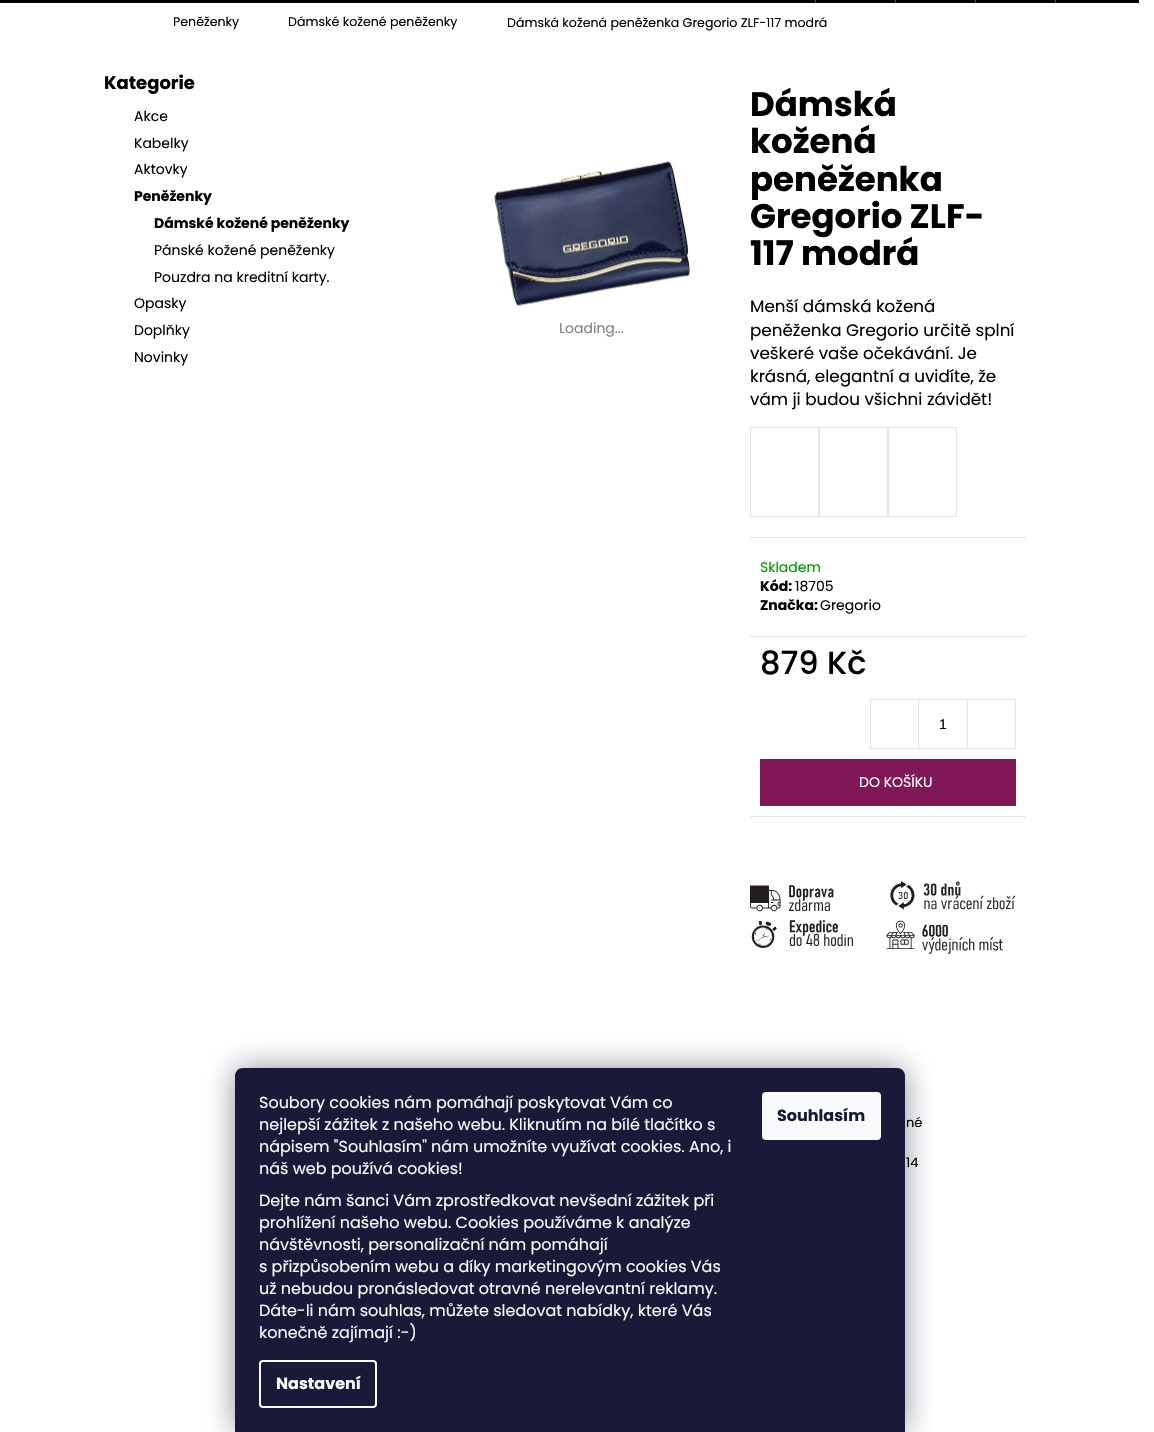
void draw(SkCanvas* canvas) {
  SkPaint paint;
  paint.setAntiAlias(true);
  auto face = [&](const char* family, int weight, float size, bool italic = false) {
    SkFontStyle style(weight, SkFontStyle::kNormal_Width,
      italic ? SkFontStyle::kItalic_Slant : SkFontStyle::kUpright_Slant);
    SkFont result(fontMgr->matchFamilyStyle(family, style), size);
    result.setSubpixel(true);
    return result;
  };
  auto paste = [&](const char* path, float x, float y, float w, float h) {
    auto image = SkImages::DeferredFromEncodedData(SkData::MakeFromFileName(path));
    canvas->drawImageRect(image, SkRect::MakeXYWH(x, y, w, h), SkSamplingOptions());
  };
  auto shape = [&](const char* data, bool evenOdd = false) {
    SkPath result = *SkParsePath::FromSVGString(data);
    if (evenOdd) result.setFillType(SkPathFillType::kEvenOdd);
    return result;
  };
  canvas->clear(0xffffffff);
  {
    const struct { float x, y, w, h; SkColor color; } items[] = {
      {0, 0, 1139, 3, 0xff000000},
      {1055, 0, 1, 3, 0xff4d4d4d},
      {815, 0, 1, 3, 0xff4d4d4d},
      {895, 0, 1, 3, 0xff4d4d4d},
      {975, 0, 1, 3, 0xff4d4d4d},
    };
    for (auto [x, y, w, h, color] : items) {
      paint.setColor(color);
      canvas->drawRect(SkRect::MakeXYWH(x, y, w, h), paint);
    }
  }
  paste("img/1.png", 494, 161, 196, 146);
  paint.setStroke(true);
  paint.setStrokeWidth(1);
  paint.setColor(0xffe6e6e6);
  canvas->drawRect(SkRect::MakeXYWH(750.5f, 427.5f, 68, 89), paint);
  canvas->drawRect(SkRect::MakeXYWH(819.5f, 427.5f, 68, 89), paint);
  canvas->drawRect(SkRect::MakeXYWH(888.5f, 427.5f, 68, 89), paint);
  paint.setStroke(false);
  {
    const struct { float x, y, w, h; SkColor color; } items[] = {
      {750, 537, 276, 1, 0xffe7e7e7},
      {750, 636, 276, 1, 0xffe7e7e7},
      {750, 816, 276, 1, 0xffe7e7e7},
    };
    for (auto [x, y, w, h, color] : items) {
      paint.setColor(color);
      canvas->drawRect(SkRect::MakeXYWH(x, y, w, h), paint);
    }
  }
  paint.setStroke(true);
  paint.setColor(0xffe6e6e6);
  canvas->drawRect(SkRect::MakeXYWH(870.5f, 699.5f, 145, 49), paint);
  paint.setStroke(false);
  {
    const struct { float x, y, w, h; SkColor color; } items[] = {
      {918, 700, 1, 48, 0xffe6e6e6},
      {967, 700, 1, 48, 0xffe6e6e6},
      {760, 759, 256, 47, 0xff801756},
    };
    for (auto [x, y, w, h, color] : items) {
      paint.setColor(color);
      canvas->drawRect(SkRect::MakeXYWH(x, y, w, h), paint);
    }
  }
  paste("img/2.png", 750, 881, 266, 73);
  paint.setColor(0x801b1939);
  paint.setMaskFilter(SkMaskFilter::MakeBlur(kNormal_SkBlurStyle, 15));
  canvas->drawRoundRect(SkRect::MakeXYWH(235, 1068, 670, 364), 8, 8, paint);
  paint.setMaskFilter(nullptr);
  paint.setColor(0xff1a1937);
  canvas->drawPath(shape("M243 1068H897C901.5 1068 905 1071.5 905 1076V1432H235V1076C235 1071.5 238.5 1068 243 1068Z"), paint);
  paint.setStroke(true);
  paint.setStrokeWidth(2);
  paint.setColor(0xfff8fafb);
  canvas->drawRoundRect(SkRect::MakeXYWH(260, 1361, 116, 46), 3, 3, paint);
  paint.setStroke(false);
  canvas->drawRoundRect(SkRect::MakeXYWH(762, 1092, 119, 48), 4, 4, paint);
  auto f0 = face("Poppins", 400, 12.6f);
  paint.setColor(0xff000000);
  {
    const struct { const char* s; float x, y; } items[] = {
      {"Peněženky", 173, 26},
      {"Dámské kožené peněženky", 288, 26},
      {"Dámská kožená peněženka Gregorio ZLF-117 modrá", 507, 27},
    };
    for (auto [s, x, y] : items) {
      canvas->drawString(s, x, y, f0, paint);
    }
  }
  auto f1 = face("Poppins", 700, 18);
  canvas->drawString("Kategorie", 104, 89, f1, paint);
  auto f2 = face("Poppins", 400, 14);
  {
    const struct { const char* s; float x, y; } items[] = {
      {"Akce", 134, 121},
      {"Kabelky", 134, 148},
      {"Aktovky", 134, 174},
    };
    for (auto [s, x, y] : items) {
      canvas->drawString(s, x, y, f2, paint);
    }
  }
  auto f3 = face("Poppins", 700, 14);
  canvas->drawString("Peněženky", 134, 201, f3, paint);
  canvas->drawString("Dámské kožené peněženky", 154, 228, f3, paint);
  {
    const struct { const char* s; float x, y; } items[] = {
      {"Pánské kožené peněženky", 154, 255},
      {"Pouzdra na kreditní karty.", 154, 282},
      {"Opasky", 134, 308},
      {"Doplňky", 134, 335},
      {"Novinky", 134, 362},
    };
    for (auto [s, x, y] : items) {
      canvas->drawString(s, x, y, f2, paint);
    }
  }
  paint.setColor(0xff808080);
  canvas->drawString("Loading...", 559, 333, f2, paint);
  auto f4 = face("Poppins", 700, 34);
  paint.setColor(0xff000000);
  {
    const struct { const char* s; float x, y; } items[] = {
      {"Dámská", 750, 116},
      {"kožená", 750, 153},
      {"peněženka", 750, 191},
      {"Gregorio ZLF-", 750, 228},
      {"117 modrá", 750, 265},
    };
    for (auto [s, x, y] : items) {
      canvas->drawString(s, x, y, f4, paint);
    }
  }
  auto f5 = face("Poppins", 400, 16.75f);
  {
    const struct { const char* s; float x, y; } items[] = {
      {"Menší dámská kožená", 750, 312},
      {"peněženka Gregorio určitě splní", 750, 336},
      {"veškeré vaše očekávání. Je", 750, 359},
      {"krásná, elegantní a uvidíte, že", 750, 382},
      {"vám ji budou všichni závidět!", 750, 405},
    };
    for (auto [s, x, y] : items) {
      canvas->drawString(s, x, y, f5, paint);
    }
  }
  paint.setColor(0xff009901);
  canvas->drawString("Skladem", 760, 572, f2, paint);
  paint.setColor(0xff000000);
  canvas->drawString("Kód:", 760, 591, f3, paint);
  canvas->drawString("18705", 795, 591, f2, paint);
  canvas->drawString("Značka:", 760, 610, f3, paint);
  canvas->drawString("Gregorio", 820, 610, f2, paint);
  auto f6 = face("Poppins", 500, 32);
  canvas->drawString("879 Kč", 760, 674, f6, paint);
  auto f7 = face("Liberation Sans", 400, 14);
  canvas->drawString("1", 939, 729, f7, paint);
  paint.setColor(0xffffffff);
  canvas->drawString("DO KOŠÍKU", 859, 787, f2, paint);
  auto f8 = face("Poppins", 400, 13);
  paint.setColor(0xff000000);
  canvas->drawString("né", 906, 1127, f8, paint);
  canvas->drawString("14", 906, 1167, f8, paint);
  auto f9 = face("Poppins", 400, 16);
  paint.setColor(0xfff8fafb);
  {
    const struct { const char* s; float x, y; } items[] = {
      {"Soubory cookies nám pomáhají poskytovat Vám co", 259, 1108},
      {"nejlepší zážitek z našeho webu. Kliknutím na bílé tlačítko s", 259, 1130},
      {"nápisem \"Souhlasím\" nám umožníte využívat cookies. Ano, i", 259, 1152},
      {"náš web používá cookies!", 259, 1174},
      {"Dejte nám šanci Vám zprostředkovat nevšední zážitek při", 259, 1206},
      {"prohlížení našeho webu. Cookies používáme k analýze", 259, 1228},
      {"návštěvnosti, personalizační nám pomáhají", 259, 1250},
      {"s přizpůsobením webu a díky marketingovým cookies Vás", 259, 1272},
      {"už nebudou pronásledovat otravné nerelevantní reklamy.", 259, 1294},
      {"Dáte-li nám souhlas, můžete sledovat nabídky, které Vás", 259, 1316},
      {"konečně zajímají :-)", 259, 1338},
    };
    for (auto [s, x, y] : items) {
      canvas->drawString(s, x, y, f9, paint);
    }
  }
  auto f10 = face("Poppins", 700, 16);
  canvas->drawString("Nastavení", 276, 1389, f10, paint);
  paint.setColor(0xff1a1937);
  canvas->drawString("Souhlasím", 777, 1121, f10, paint);
}
